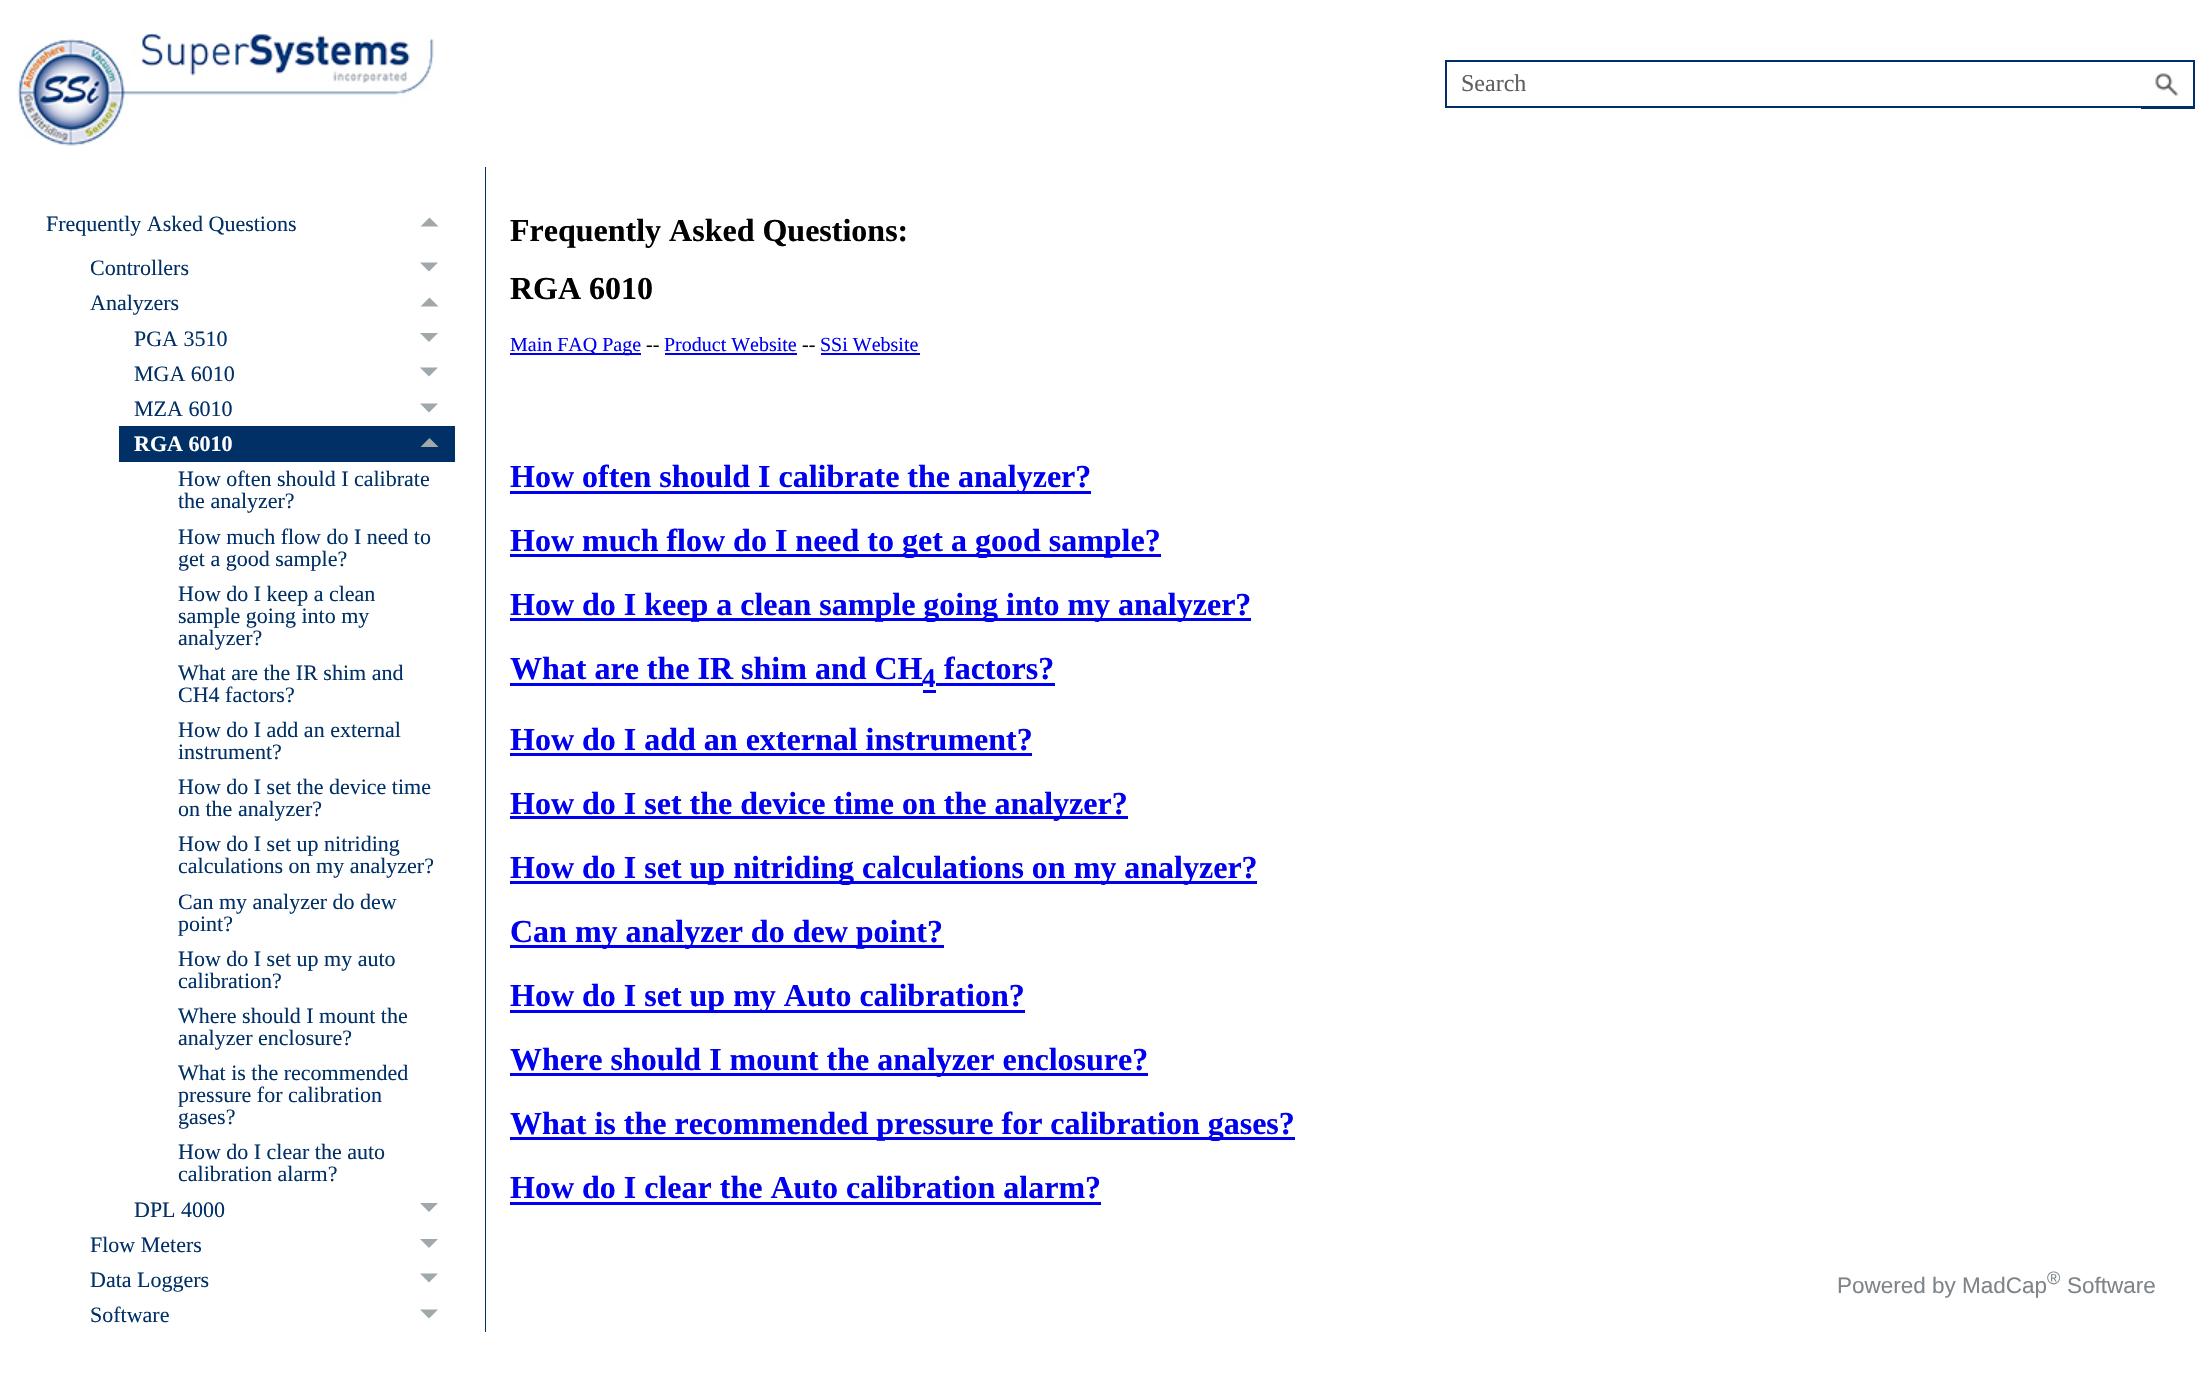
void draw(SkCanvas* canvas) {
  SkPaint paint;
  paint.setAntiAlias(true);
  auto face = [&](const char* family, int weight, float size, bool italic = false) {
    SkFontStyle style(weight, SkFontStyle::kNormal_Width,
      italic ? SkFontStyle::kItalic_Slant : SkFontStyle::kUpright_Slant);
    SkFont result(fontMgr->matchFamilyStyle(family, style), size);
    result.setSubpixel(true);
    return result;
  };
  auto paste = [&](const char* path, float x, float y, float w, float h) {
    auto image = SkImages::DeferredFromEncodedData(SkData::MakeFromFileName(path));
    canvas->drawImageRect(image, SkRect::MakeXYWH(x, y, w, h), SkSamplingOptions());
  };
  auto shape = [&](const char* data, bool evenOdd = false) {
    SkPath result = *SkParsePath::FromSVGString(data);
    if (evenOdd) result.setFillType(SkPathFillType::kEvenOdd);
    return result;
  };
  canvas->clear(0xffffffff);
  paste("img/1.png", 17, 33, 417, 113);
  paint.setStroke(true);
  paint.setStrokeWidth(2);
  paint.setColor(0xff003066);
  canvas->drawRect(SkRect::MakeXYWH(1446, 61, 748, 46), paint);
  paste("img/2.png", 2155, 73, 24, 24);
  paint.setStroke(false);
  canvas->drawRect(SkRect::MakeXYWH(2141, 108, 54, 1), paint);
  canvas->drawRect(SkRect::MakeXYWH(485, 167, 1, 1165), paint);
  paint.setColor(0xffa1a8ac);
  canvas->drawPath(shape("M420.5 226.5H438.5L429.5 217.5Z"), paint);
  canvas->drawPath(shape("M420 262.5H438L429 271.5Z"), paint);
  canvas->drawPath(shape("M420.5 306.5H438.5L429.5 297.5Z"), paint);
  canvas->drawPath(shape("M420 333H438L429 342Z"), paint);
  canvas->drawPath(shape("M420 367.5H438L429 376.5Z"), paint);
  canvas->drawPath(shape("M420 403.5H438L429 412.5Z"), paint);
  paint.setColor(0xff003066);
  canvas->drawRect(SkRect::MakeXYWH(119, 426, 336, 36), paint);
  paint.setColor(0xffa1a8ac);
  canvas->drawPath(shape("M420.5 447H438.5L429.5 438Z"), paint);
  canvas->drawPath(shape("M420 1203H438L429 1212Z"), paint);
  canvas->drawPath(shape("M420 1239H438L429 1248Z"), paint);
  canvas->drawPath(shape("M420 1273.5H438L429 1282.5Z"), paint);
  canvas->drawPath(shape("M420 1309.5H438L429 1318.5Z"), paint);
  {
    const struct { float x, y, w, h; SkColor color; } items[] = {
      {510, 353, 131, 2, 0xff0000ee},
      {665, 353, 132, 2, 0xff0000ee},
      {821, 353, 99, 2, 0xff0000ee},
      {510, 491, 581, 3, 0xff0000ee},
      {510, 554, 651, 3, 0xff0000ee},
      {510, 618, 741, 3, 0xff0000ee},
      {510, 683, 413, 3, 0xff0000ee},
      {923, 690, 13, 3, 0xff0000ee},
      {936, 683, 119, 3, 0xff0000ee},
      {510, 753, 522, 3, 0xff0000ee},
      {510, 816, 618, 3, 0xff0000ee},
      {510, 881, 747, 3, 0xff0000ee},
      {510, 945, 434, 3, 0xff0000ee},
      {510, 1010, 515, 3, 0xff0000ee},
      {510, 1073, 638, 3, 0xff0000ee},
      {510, 1137, 785, 3, 0xff0000ee},
      {510, 1202, 591, 3, 0xff0000ee},
    };
    for (auto [x, y, w, h, color] : items) {
      paint.setColor(color);
      canvas->drawRect(SkRect::MakeXYWH(x, y, w, h), paint);
    }
  }
  auto f0 = face("Liberation Serif", 400, 24);
  paint.setColor(0xff5f5f5f);
  canvas->drawString("Search", 1461, 91, f0, paint);
  auto f1 = face("Liberation Serif", 400, 22);
  paint.setColor(0xff003066);
  {
    const struct { const char* s; float x, y; } items[] = {
      {"Frequently Asked Questions", 46, 231},
      {"Controllers", 90, 275},
      {"Analyzers", 90, 310},
      {"PGA 3510", 134, 346},
      {"MGA 6010", 134, 381},
      {"MZA 6010", 134, 416},
    };
    for (auto [s, x, y] : items) {
      canvas->drawString(s, x, y, f1, paint);
    }
  }
  auto f2 = face("Liberation Serif", 700, 22);
  paint.setColor(0xffffffff);
  canvas->drawString("RGA 6010", 134, 451, f2, paint);
  paint.setColor(0xff003066);
  {
    const struct { const char* s; float x, y; } items[] = {
      {"How often should I calibrate", 178, 486},
      {"the analyzer?", 178, 508},
      {"How much flow do I need to", 178, 544},
      {"get a good sample?", 178, 566},
      {"How do I keep a clean", 178, 601},
      {"sample going into my", 178, 623},
      {"analyzer?", 178, 645},
      {"What are the IR shim and", 178, 680},
      {"CH4 factors?", 178, 702},
      {"How do I add an external", 178, 737},
      {"instrument?", 178, 759},
      {"How do I set the device time", 178, 794},
      {"on the analyzer?", 178, 816},
      {"How do I set up nitriding", 178, 851},
      {"calculations on my analyzer?", 178, 873},
      {"Can my analyzer do dew", 178, 909},
      {"point?", 178, 931},
      {"How do I set up my auto", 178, 966},
      {"calibration?", 178, 988},
      {"Where should I mount the", 178, 1023},
      {"analyzer enclosure?", 178, 1045},
      {"What is the recommended", 178, 1080},
      {"pressure for calibration", 178, 1102},
      {"gases?", 178, 1124},
      {"How do I clear the auto", 178, 1159},
      {"calibration alarm?", 178, 1181},
      {"DPL 4000", 134, 1217},
      {"Flow Meters", 90, 1252},
      {"Data Loggers", 90, 1287},
      {"Software", 90, 1322},
    };
    for (auto [s, x, y] : items) {
      canvas->drawString(s, x, y, f1, paint);
    }
  }
  auto f3 = face("Liberation Serif", 700, 32);
  paint.setColor(0xff000000);
  canvas->drawString("Frequently Asked Questions:", 510, 241, f3, paint);
  canvas->drawString("RGA 6010", 510, 299, f3, paint);
  auto f4 = face("Liberation Serif", 400, 20);
  paint.setColor(0xff0000ee);
  canvas->drawString("Main FAQ Page", 510, 351, f4, paint);
  paint.setColor(0xff000000);
  canvas->drawString("--", 646, 351, f4, paint);
  paint.setColor(0xff0000ee);
  canvas->drawString("Product Website", 664, 351, f4, paint);
  paint.setColor(0xff000000);
  canvas->drawString("--", 802, 351, f4, paint);
  paint.setColor(0xff0000ee);
  canvas->drawString("SSi Website", 820, 351, f4, paint);
  {
    const struct { const char* s; float x, y; } items[] = {
      {"How often should I calibrate the analyzer?", 510, 487},
      {"How much flow do I need to get a good sample?", 510, 551},
      {"How do I keep a clean sample going into my analyzer?", 510, 615},
      {"What are the IR shim and CH", 510, 679},
    };
    for (auto [s, x, y] : items) {
      canvas->drawString(s, x, y, f3, paint);
    }
  }
  auto f5 = face("Liberation Serif", 700, 27);
  canvas->drawString("4", 922, 687, f5, paint);
  {
    const struct { const char* s; float x, y; } items[] = {
      {"factors?", 944, 679},
      {"How do I add an external instrument?", 510, 750},
      {"How do I set the device time on the analyzer?", 510, 814},
      {"How do I set up nitriding calculations on my analyzer?", 510, 878},
      {"Can my analyzer do dew point?", 510, 942},
      {"How do I set up my Auto calibration?", 510, 1006},
      {"Where should I mount the analyzer enclosure?", 510, 1070},
      {"What is the recommended pressure for calibration gases?", 510, 1134},
      {"How do I clear the Auto calibration alarm?", 510, 1198},
    };
    for (auto [s, x, y] : items) {
      canvas->drawString(s, x, y, f3, paint);
    }
  }
  auto f6 = face("Liberation Sans", 400, 22.5f);
  paint.setColor(0xff7d858a);
  canvas->drawString("Powered by MadCap", 1837, 1293, f6, paint);
  auto f7 = face("Liberation Sans", 400, 18);
  canvas->drawString("®", 2047, 1284, f7, paint);
  canvas->drawString("Software", 2067, 1293, f6, paint);
}
